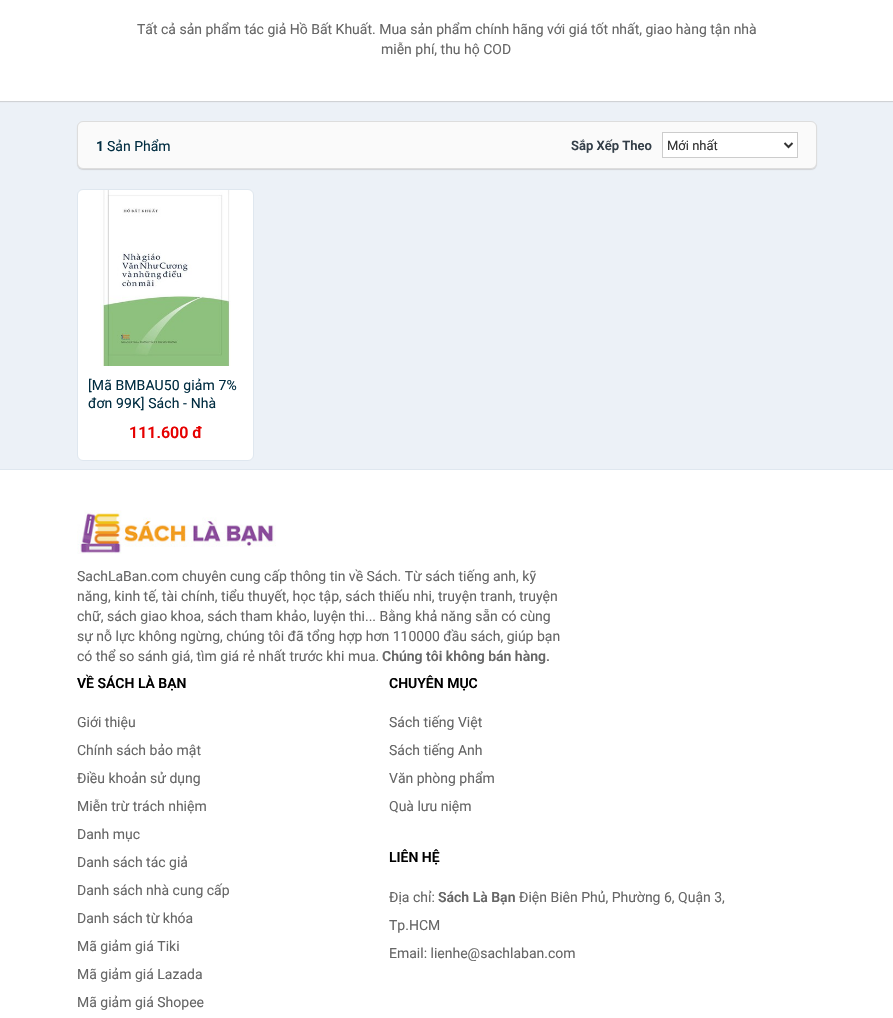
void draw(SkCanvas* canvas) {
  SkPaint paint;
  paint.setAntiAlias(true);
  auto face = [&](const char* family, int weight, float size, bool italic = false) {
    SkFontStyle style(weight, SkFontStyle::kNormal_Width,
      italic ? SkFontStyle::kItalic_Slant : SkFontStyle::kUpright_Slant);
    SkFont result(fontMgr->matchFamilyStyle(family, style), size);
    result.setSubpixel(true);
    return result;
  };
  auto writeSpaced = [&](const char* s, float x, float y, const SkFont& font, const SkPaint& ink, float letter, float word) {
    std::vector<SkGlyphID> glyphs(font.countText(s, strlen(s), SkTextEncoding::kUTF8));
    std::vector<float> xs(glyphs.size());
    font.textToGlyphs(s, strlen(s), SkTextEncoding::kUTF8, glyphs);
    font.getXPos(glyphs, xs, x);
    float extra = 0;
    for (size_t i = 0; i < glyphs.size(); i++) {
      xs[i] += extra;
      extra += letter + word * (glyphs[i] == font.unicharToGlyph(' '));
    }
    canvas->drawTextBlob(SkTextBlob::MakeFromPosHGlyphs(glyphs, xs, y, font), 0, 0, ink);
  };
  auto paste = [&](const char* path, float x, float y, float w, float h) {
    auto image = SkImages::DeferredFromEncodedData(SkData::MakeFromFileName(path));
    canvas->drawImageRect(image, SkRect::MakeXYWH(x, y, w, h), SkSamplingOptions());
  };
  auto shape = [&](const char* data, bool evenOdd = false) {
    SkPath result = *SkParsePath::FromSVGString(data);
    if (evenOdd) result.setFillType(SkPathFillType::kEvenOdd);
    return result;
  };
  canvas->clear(0xffffffff);
  paint.setColor(0xffecf1f7);
  canvas->drawRect(SkRect::MakeXYWH(0, 101, 893, 368), paint);
  paint.setColor(0x80b4b4b4);
  paint.setMaskFilter(SkMaskFilter::MakeBlur(kNormal_SkBlurStyle, 0.5f));
  canvas->drawRect(SkRect::MakeXYWH(0, -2, 893, 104), paint);
  paint.setMaskFilter(nullptr);
  paint.setColor(0xffffffff);
  canvas->drawRect(SkRect::MakeXYWH(0, 0, 893, 101), paint);
  paint.setColor(0x80b4b4b4);
  paint.setMaskFilter(SkMaskFilter::MakeBlur(kNormal_SkBlurStyle, 0.5f));
  canvas->drawRoundRect(SkRect::MakeXYWH(77, 122, 740, 48), 6, 6, paint);
  paint.setMaskFilter(nullptr);
  paint.setColor(0xfffafafa);
  canvas->drawRoundRect(SkRect::MakeXYWH(77.5f, 121.5f, 739, 47), 5.5f, 5.5f, paint);
  paint.setStroke(true);
  paint.setStrokeWidth(1);
  paint.setColor(0xffdddddd);
  canvas->drawRoundRect(SkRect::MakeXYWH(77.5f, 121.5f, 739, 47), 5.5f, 5.5f, paint);
  paint.setStroke(false);
  paint.setColor(0xffffffff);
  canvas->drawRect(SkRect::MakeXYWH(662.5f, 132.5f, 135, 25), paint);
  paint.setStroke(true);
  paint.setColor(0xffcccccc);
  canvas->drawRect(SkRect::MakeXYWH(662.5f, 132.5f, 135, 25), paint);
  paint.setStrokeWidth(2);
  paint.setColor(0xff333333);
  canvas->drawPath(shape("M784.5 143L788.5 147L792.5 143"), paint);
  paint.setStroke(false);
  paint.setColor(0xffffffff);
  canvas->drawRoundRect(SkRect::MakeXYWH(77.5f, 189.5f, 176, 271), 5.5f, 5.5f, paint);
  paint.setStroke(true);
  paint.setStrokeWidth(1);
  paint.setColor(0xffdfe7ef);
  canvas->drawRoundRect(SkRect::MakeXYWH(77.5f, 189.5f, 176, 271), 5.5f, 5.5f, paint);
  paste("img/1.png", 100, 190, 131, 176);
  paint.setStroke(false);
  canvas->drawRect(SkRect::MakeXYWH(0, 469, 893, 1), paint);
  paste("img/2.png", 77, 510, 199, 44);
  auto f0 = face("Roboto", 400, 14);
  paint.setColor(0xff666666);
  canvas->drawString("Tất cả sản phẩm tác giả Hồ Bất Khuất. Mua sản phẩm chính hãng với giá tốt nhất, giao hàng tận nhà", 137, 34, f0, paint);
  canvas->drawString("miễn phí, thu hộ COD", 381, 54, f0, paint);
  auto f1 = face("Roboto", 600, 14);
  paint.setColor(0xff012d41);
  canvas->drawString("1", 96, 151, f1, paint);
  canvas->drawString("Sản Phẩm", 107, 151, f0, paint);
  auto f2 = face("Roboto", 600, 13);
  paint.setColor(0xff333e48);
  canvas->drawString("Sắp Xếp Theo", 571, 150, f2, paint);
  auto f3 = face("Roboto", 400, 13);
  paint.setColor(0xff333333);
  canvas->drawString("Mới nhất", 667, 150, f3, paint);
  paint.setColor(0xff012d41);
  writeSpaced("[Mã BMBAU50 giảm 7%", 88, 390, f0, paint, 0.1f, 0);
  writeSpaced("đơn 99K] Sách - Nhà", 88, 408, f0, paint, 0.1f, 0);
  auto f4 = face("Roboto", 600, 16);
  paint.setColor(0xffe60000);
  canvas->drawString("111.600 đ", 129, 438, f4, paint);
  paint.setColor(0xff666666);
  {
    const struct { const char* s; float x, y; } items[] = {
      {"SachLaBan.com chuyên cung cấp thông tin về Sách. Từ sách tiếng anh, kỹ", 77, 581},
      {"năng, kinh tế, tài chính, tiểu thuyết, học tập, sách thiếu nhi, truyện tranh, truyện", 77, 601},
      {"chữ, sách giao khoa, sách tham khảo, luyện thi... Bằng khả năng sẵn có cùng", 77, 621},
      {"sự nỗ lực không ngừng, chúng tôi đã tổng hợp hơn 110000 đầu sách, giúp bạn", 77, 641},
      {"có thể so sánh giá, tìm giá rẻ nhất trước khi mua.", 77, 661},
    };
    for (auto [s, x, y] : items) {
      canvas->drawString(s, x, y, f0, paint);
    }
  }
  canvas->drawString("Chúng tôi không bán hàng.", 382, 661, f1, paint);
  paint.setColor(0xff000000);
  canvas->drawString("VỀ SÁCH LÀ BẠN", 77, 688, f1, paint);
  paint.setColor(0xff666666);
  {
    const struct { const char* s; float x, y; } items[] = {
      {"Giới thiệu", 77, 727},
      {"Chính sách bảo mật", 77, 755},
      {"Điều khoản sử dụng", 77, 783},
      {"Miễn trừ trách nhiệm", 77, 811},
      {"Danh mục", 77, 839},
      {"Danh sách tác giả", 77, 867},
      {"Danh sách nhà cung cấp", 77, 895},
      {"Danh sách từ khóa", 77, 923},
      {"Mã giảm giá Tiki", 77, 951},
      {"Mã giảm giá Lazada", 77, 979},
      {"Mã giảm giá Shopee", 77, 1007},
    };
    for (auto [s, x, y] : items) {
      canvas->drawString(s, x, y, f0, paint);
    }
  }
  paint.setColor(0xff000000);
  canvas->drawString("CHUYÊN MỤC", 389, 688, f1, paint);
  paint.setColor(0xff666666);
  {
    const struct { const char* s; float x, y; } items[] = {
      {"Sách tiếng Việt", 389, 727},
      {"Sách tiếng Anh", 389, 755},
      {"Văn phòng phẩm", 389, 783},
      {"Quà lưu niệm", 389, 811},
    };
    for (auto [s, x, y] : items) {
      canvas->drawString(s, x, y, f0, paint);
    }
  }
  paint.setColor(0xff000000);
  canvas->drawString("LIÊN HỆ", 389, 862, f1, paint);
  paint.setColor(0xff666666);
  canvas->drawString("Địa chỉ:", 389, 902, f0, paint);
  canvas->drawString("Sách Là Bạn", 438, 902, f1, paint);
  {
    const struct { const char* s; float x, y; } items[] = {
      {"Điện Biên Phủ, Phường 6, Quận 3,", 519, 902},
      {"Tp.HCM", 389, 930},
      {"Email: lienhe@sachlaban.com", 389, 958},
    };
    for (auto [s, x, y] : items) {
      canvas->drawString(s, x, y, f0, paint);
    }
  }
}
